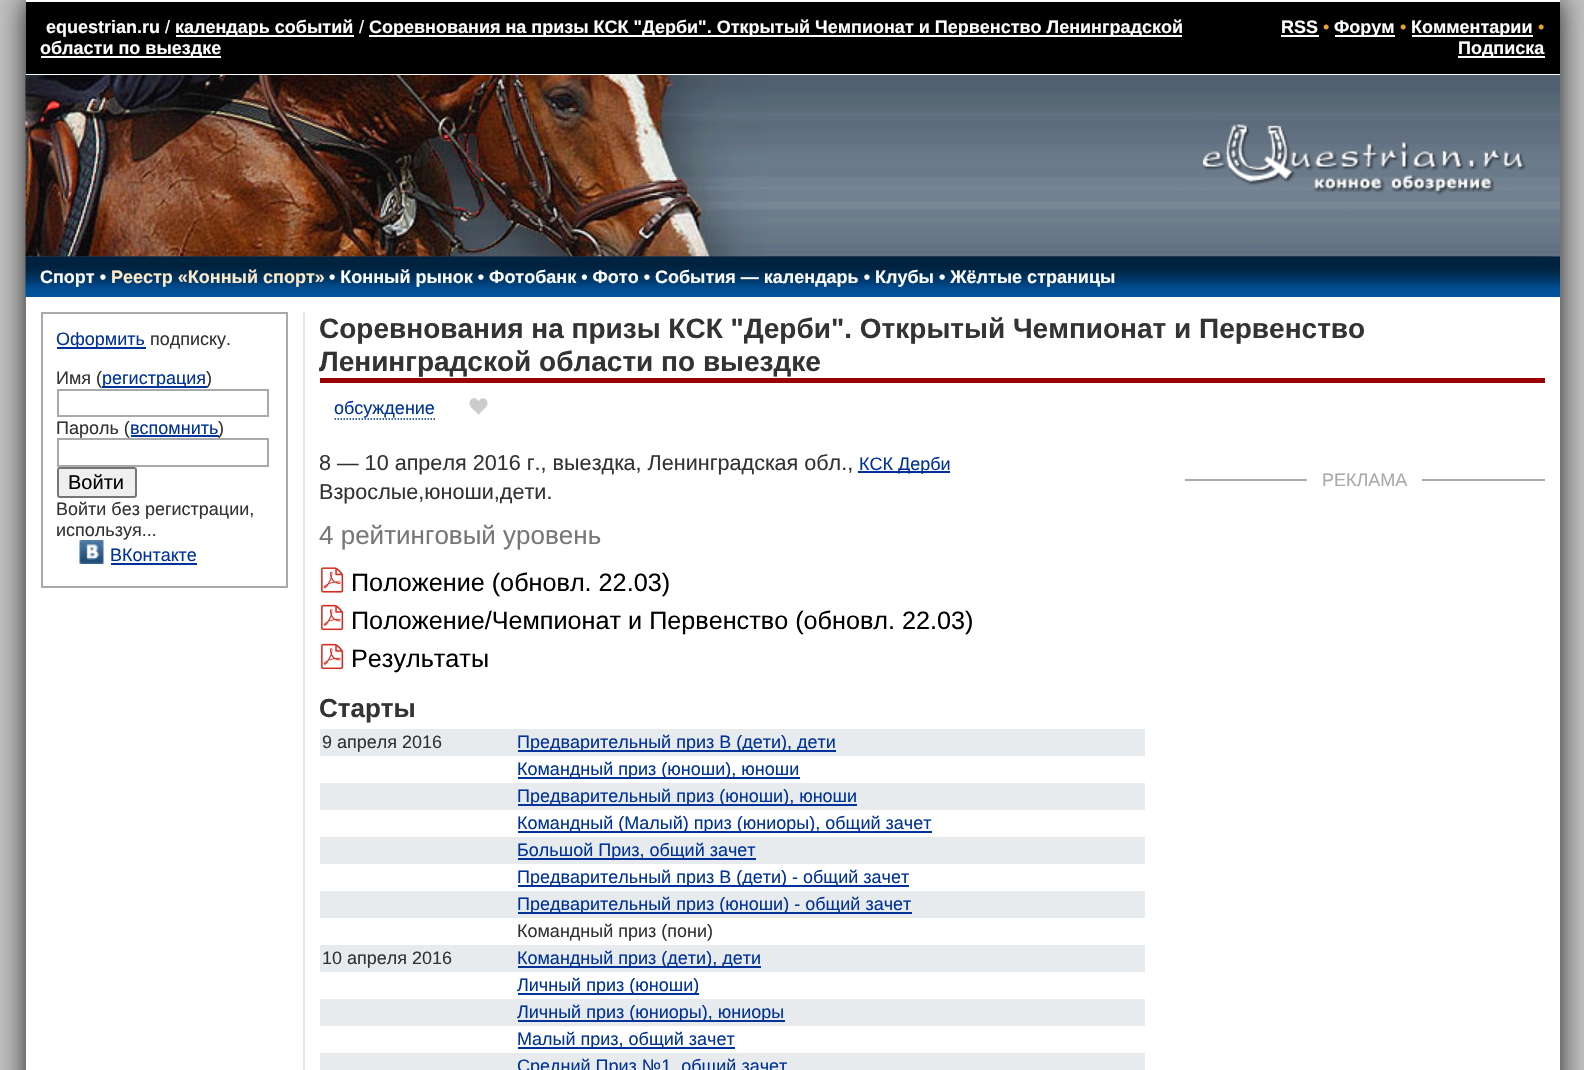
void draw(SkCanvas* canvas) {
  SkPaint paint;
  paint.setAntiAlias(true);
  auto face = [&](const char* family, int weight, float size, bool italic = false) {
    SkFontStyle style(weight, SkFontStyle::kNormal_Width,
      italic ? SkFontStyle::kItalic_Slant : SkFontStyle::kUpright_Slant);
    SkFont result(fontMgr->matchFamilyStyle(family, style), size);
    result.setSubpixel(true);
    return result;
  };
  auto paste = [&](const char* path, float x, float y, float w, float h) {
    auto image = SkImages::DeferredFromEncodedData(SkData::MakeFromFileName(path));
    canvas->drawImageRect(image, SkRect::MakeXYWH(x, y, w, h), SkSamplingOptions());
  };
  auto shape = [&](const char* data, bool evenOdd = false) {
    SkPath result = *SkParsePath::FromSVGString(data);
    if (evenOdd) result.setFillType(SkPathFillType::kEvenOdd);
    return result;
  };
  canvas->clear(0xffc0c0c0);
  paint.setColor(0xff212121);
  paint.setMaskFilter(SkMaskFilter::MakeBlur(kNormal_SkBlurStyle, 13));
  canvas->drawRect(SkRect::MakeXYWH(26, 0, 1534, 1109), paint);
  paint.setMaskFilter(nullptr);
  {
    const struct { float x, y, w, h; SkColor color; } items[] = {
      {26, 2, 1534, 72, 0xff000000},
      {26, 0, 1534, 2, 0xffffffff},
      {26, 74, 1534, 1, 0xffffffff},
      {176, 35, 178, 2, 0xffffffff},
      {369, 35, 813, 2, 0xffffffff},
      {41, 56, 180, 2, 0xffffffff},
      {1281, 35, 38, 2, 0xffffffff},
      {1335, 35, 60, 2, 0xffffffff},
      {1412, 35, 121, 2, 0xffffffff},
      {1458, 56, 87, 2, 0xffffffff},
    };
    for (auto [x, y, w, h, color] : items) {
      paint.setColor(color);
      canvas->drawRect(SkRect::MakeXYWH(x, y, w, h), paint);
    }
  }
  paste("img/1.png", 25, 75, 1145, 182);
  paste("img/2.png", 25, 75, 742, 182);
  paste("img/3.png", 1170, 75, 390, 182);
  paste("img/4.png", 1203, 124, 323, 71);
  paste("img/5.png", 25, 256, 1535, 41);
  canvas->drawRect(SkRect::MakeXYWH(26, 297, 1534, 773), paint);
  paint.setColor(0xffe5e5e5);
  canvas->drawRect(SkRect::MakeXYWH(303, 312, 2, 758), paint);
  paint.setStroke(true);
  paint.setStrokeWidth(2);
  paint.setColor(0xffa9a9a9);
  canvas->drawRect(SkRect::MakeXYWH(42, 313, 245, 274), paint);
  paint.setStroke(false);
  paint.setColor(0xff003399);
  canvas->drawRect(SkRect::MakeXYWH(57, 347, 89, 2), paint);
  paint.setStroke(true);
  paint.setColor(0xffa9a9a9);
  canvas->drawRect(SkRect::MakeXYWH(58, 390, 210, 26), paint);
  paint.setStroke(false);
  paint.setColor(0xff003399);
  canvas->drawRect(SkRect::MakeXYWH(131, 435, 88, 2), paint);
  paint.setStroke(true);
  paint.setColor(0xffa9a9a9);
  canvas->drawRect(SkRect::MakeXYWH(58, 439, 210, 27), paint);
  paint.setStroke(false);
  paint.setColor(0xffefefef);
  canvas->drawRoundRect(SkRect::MakeXYWH(58, 468, 78, 29), 2, 2, paint);
  paint.setStroke(true);
  paint.setColor(0xff767676);
  canvas->drawRoundRect(SkRect::MakeXYWH(58, 468, 78, 29), 2, 2, paint);
  paste("img/6.png", 79, 540, 25, 24);
  paint.setStroke(false);
  paint.setColor(0xff003399);
  canvas->drawRect(SkRect::MakeXYWH(111, 563, 86, 2), paint);
  paint.setColor(0xff990000);
  canvas->drawRect(SkRect::MakeXYWH(320, 378, 1225, 5), paint);
  paint.setStroke(true);
  paint.setStrokeWidth(1.5f);
  paint.setColor(0xff003399);
  paint.setPathEffect(SkDashPathEffect::Make({{1.5f, 1.5f}}, 0));
  canvas->drawPath(shape("M334.5 419H435"), paint);
  paint.setPathEffect(nullptr);
  paste("img/7.png", 469, 398, 19, 17);
  paint.setStroke(false);
  {
    const struct { float x, y, w, h; SkColor color; } items[] = {
      {858, 471, 92, 2, 0xff003399},
      {1185, 479, 360, 2, 0xffaaaaaa},
      {1307, 479, 115, 2, 0xffffffff},
    };
    for (auto [x, y, w, h, color] : items) {
      paint.setColor(color);
      canvas->drawRect(SkRect::MakeXYWH(x, y, w, h), paint);
    }
  }
  paste("img/8.png", 321, 567, 23, 26);
  paste("img/9.png", 321, 604, 23, 27);
  paste("img/9.png", 321, 643, 23, 27);
  {
    const struct { float x, y, w, h; SkColor color; } items[] = {
      {320, 729, 825, 27, 0xffe8ebed},
      {518, 750, 318, 2, 0xff003399},
      {518, 777, 282, 2, 0xff003399},
      {320, 783, 825, 27, 0xffe8ebed},
      {518, 804, 339, 2, 0xff003399},
      {518, 831, 414, 2, 0xff003399},
      {320, 837, 825, 27, 0xffe8ebed},
      {518, 858, 238, 2, 0xff003399},
      {518, 885, 391, 2, 0xff003399},
      {320, 891, 825, 27, 0xffe8ebed},
      {518, 912, 394, 2, 0xff003399},
      {320, 945, 825, 27, 0xffe8ebed},
      {518, 966, 243, 2, 0xff003399},
      {518, 993, 181, 2, 0xff003399},
      {320, 999, 825, 27, 0xffe8ebed},
      {518, 1020, 267, 2, 0xff003399},
      {518, 1047, 217, 2, 0xff003399},
      {320, 1053, 825, 17, 0xffe8ebed},
    };
    for (auto [x, y, w, h, color] : items) {
      paint.setColor(color);
      canvas->drawRect(SkRect::MakeXYWH(x, y, w, h), paint);
    }
  }
  auto f0 = face("Liberation Sans", 700, 18);
  paint.setColor(0xffffffff);
  canvas->drawString("equestrian.ru", 46, 33, f0, paint);
  auto f1 = face("Liberation Sans", 400, 18);
  canvas->drawString("/", 165, 33, f1, paint);
  canvas->drawString("календарь событий", 175, 33, f0, paint);
  canvas->drawString("/", 359, 33, f1, paint);
  {
    const struct { const char* s; float x, y; } items[] = {
      {"Соревнования на призы КСК \"Дерби\". Открытый Чемпионат и Первенство Ленинградской", 369, 33},
      {"области по выездке", 40, 54},
      {"RSS", 1281, 33},
    };
    for (auto [s, x, y] : items) {
      canvas->drawString(s, x, y, f0, paint);
    }
  }
  paint.setColor(0xffeba02b);
  canvas->drawString("•", 1323, 33, f1, paint);
  paint.setColor(0xffffffff);
  canvas->drawString("Форум", 1334, 33, f0, paint);
  paint.setColor(0xffeba02b);
  canvas->drawString("•", 1400, 33, f1, paint);
  paint.setColor(0xffffffff);
  canvas->drawString("Комментарии", 1411, 33, f0, paint);
  paint.setColor(0xffeba02b);
  canvas->drawString("•", 1538, 33, f1, paint);
  paint.setColor(0xffffffff);
  canvas->drawString("Подписка", 1458, 54, f0, paint);
  canvas->drawString("Спорт •", 40, 283, f0, paint);
  paint.setColor(0xfffeeac7);
  canvas->drawString("Реестр «Конный спорт»", 111, 283, f0, paint);
  paint.setColor(0xffffffff);
  canvas->drawString("• Конный рынок • Фотобанк • Фото • События — календарь • Клубы • Жёлтые страницы", 329, 283, f0, paint);
  paint.setColor(0xff003399);
  canvas->drawString("Оформить", 56, 345, f1, paint);
  paint.setColor(0xff333333);
  canvas->drawString("подписку.", 150, 345, f1, paint);
  canvas->drawString("Имя (", 56, 384, f1, paint);
  paint.setColor(0xff003399);
  canvas->drawRect(SkRect::MakeXYWH(102, 386, 105, 2), paint);
  canvas->drawString("регистрация", 102, 384, f1, paint);
  paint.setColor(0xff333333);
  canvas->drawString(")", 206, 384, f1, paint);
  canvas->drawString("Пароль (", 56, 434, f1, paint);
  paint.setColor(0xff003399);
  canvas->drawString("вспомнить", 130, 434, f1, paint);
  paint.setColor(0xff333333);
  canvas->drawString(")", 218, 434, f1, paint);
  auto f2 = face("Liberation Sans", 400, 20);
  paint.setColor(0xff000000);
  canvas->drawString("Войти", 68, 489, f2, paint);
  paint.setColor(0xff333333);
  canvas->drawString("Войти без регистрации,", 56, 515, f1, paint);
  canvas->drawString("используя...", 56, 536, f1, paint);
  paint.setColor(0xff003399);
  canvas->drawString("ВКонтакте", 110, 561, f1, paint);
  auto f3 = face("Liberation Sans", 700, 28);
  paint.setColor(0xff333333);
  canvas->drawString("Соревнования на призы КСК \"Дерби\". Открытый Чемпионат и Первенство", 319, 338, f3, paint);
  canvas->drawString("Ленинградской области по выездке", 319, 371, f3, paint);
  paint.setColor(0xff003399);
  canvas->drawString("обсуждение", 334, 414, f1, paint);
  auto f4 = face("Liberation Sans", 400, 21.6f);
  paint.setColor(0xff333333);
  canvas->drawString("8 — 10 апреля 2016 г., выездка, Ленинградская обл.,", 319, 470, f4, paint);
  paint.setColor(0xff003399);
  canvas->drawString("КСК Дерби", 859, 470, f1, paint);
  paint.setColor(0xff333333);
  canvas->drawString("Взрослые,юноши,дети.", 319, 499, f4, paint);
  auto f5 = face("Liberation Sans", 400, 26);
  paint.setColor(0xff777777);
  canvas->drawString("4 рейтинговый уровень", 319, 544, f5, paint);
  paint.setColor(0xffaaaaaa);
  canvas->drawString("РЕКЛАМА", 1322, 486, f1, paint);
  auto f6 = face("Liberation Sans", 400, 25.2f);
  paint.setColor(0xff000000);
  {
    const struct { const char* s; float x, y; } items[] = {
      {"Положение (обновл. 22.03)", 351, 591},
      {"Положение/Чемпионат и Первенство (обновл. 22.03)", 351, 629},
      {"Результаты", 351, 667},
    };
    for (auto [s, x, y] : items) {
      canvas->drawString(s, x, y, f6, paint);
    }
  }
  auto f7 = face("Liberation Sans", 700, 26);
  paint.setColor(0xff333333);
  canvas->drawString("Старты", 319, 717, f7, paint);
  canvas->drawString("9 апреля 2016", 322, 748, f1, paint);
  paint.setColor(0xff003399);
  {
    const struct { const char* s; float x, y; } items[] = {
      {"Предварительный приз В (дети), дети", 517, 748},
      {"Командный приз (юноши), юноши", 517, 775},
      {"Предварительный приз (юноши), юноши", 517, 802},
      {"Командный (Малый) приз (юниоры), общий зачет", 517, 829},
      {"Большой Приз, общий зачет", 517, 856},
      {"Предварительный приз В (дети) - общий зачет", 517, 883},
      {"Предварительный приз (юноши) - общий зачет", 517, 910},
    };
    for (auto [s, x, y] : items) {
      canvas->drawString(s, x, y, f1, paint);
    }
  }
  paint.setColor(0xff333333);
  canvas->drawString("Командный приз (пони)", 517, 937, f1, paint);
  canvas->drawString("10 апреля 2016", 322, 964, f1, paint);
  paint.setColor(0xff003399);
  {
    const struct { const char* s; float x, y; } items[] = {
      {"Командный приз (дети), дети", 517, 964},
      {"Личный приз (юноши)", 517, 991},
      {"Личный приз (юниоры), юниоры", 517, 1018},
      {"Малый приз, общий зачет", 517, 1045},
      {"Средний Приз №1, общий зачет", 517, 1072},
    };
    for (auto [s, x, y] : items) {
      canvas->drawString(s, x, y, f1, paint);
    }
  }
}
